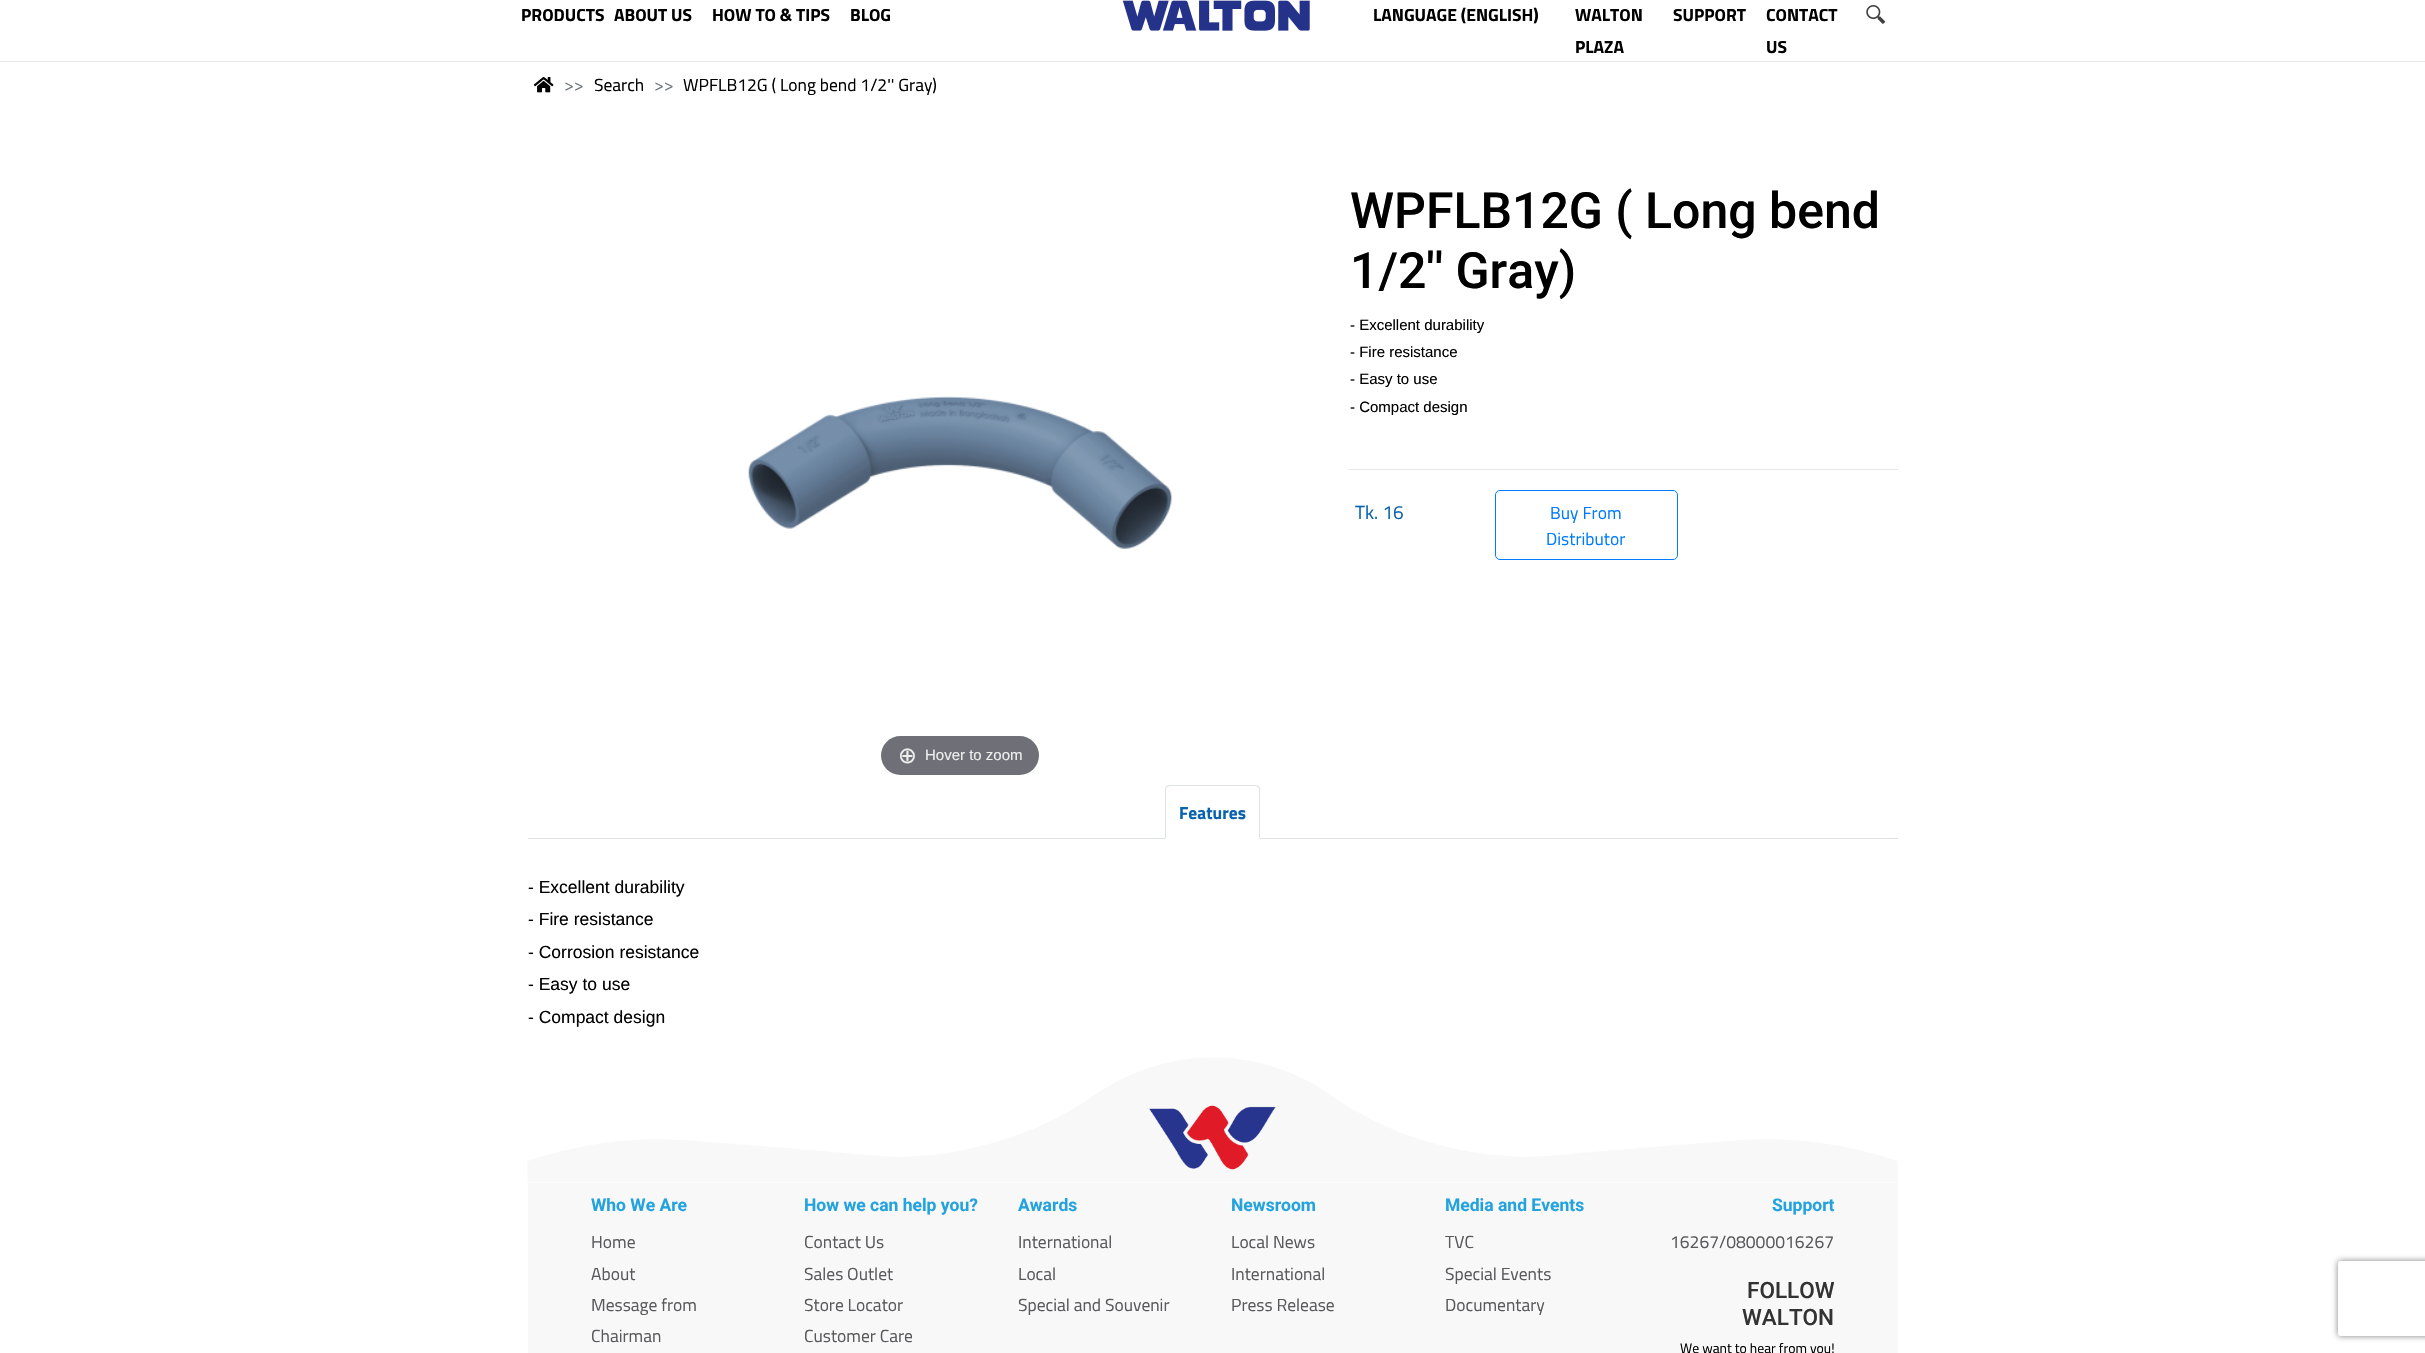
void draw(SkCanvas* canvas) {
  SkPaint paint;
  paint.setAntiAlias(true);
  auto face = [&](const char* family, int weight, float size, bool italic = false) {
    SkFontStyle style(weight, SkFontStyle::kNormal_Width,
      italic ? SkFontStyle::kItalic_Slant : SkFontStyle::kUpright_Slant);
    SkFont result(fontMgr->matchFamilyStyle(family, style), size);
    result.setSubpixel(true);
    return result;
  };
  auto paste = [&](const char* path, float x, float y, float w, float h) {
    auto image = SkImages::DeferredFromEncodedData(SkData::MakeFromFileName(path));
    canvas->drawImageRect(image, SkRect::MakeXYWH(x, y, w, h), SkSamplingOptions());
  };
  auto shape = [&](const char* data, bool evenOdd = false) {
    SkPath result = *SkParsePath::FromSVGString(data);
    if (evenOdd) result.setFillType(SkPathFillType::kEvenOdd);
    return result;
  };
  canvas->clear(0xffffffff);
  paint.setColor(0xffe7e7e7);
  canvas->drawRect(SkRect::MakeXYWH(0, 61, 2425, 1), paint);
  paste("img/1.png", 1122, 0, 188, 31);
  paste("img/2.png", 1866, 5, 19, 19);
  paste("img/3.png", 533, 77, 21, 16);
  paint.setColor(0xffe6e6e6);
  canvas->drawRect(SkRect::MakeXYWH(1349, 469, 549, 1), paint);
  paint.setStroke(true);
  paint.setStrokeWidth(1);
  paint.setColor(0xff007bff);
  canvas->drawRoundRect(SkRect::MakeXYWH(1495.5f, 490.5f, 182, 69), 4.5f, 4.5f, paint);
  paste("img/4.png", 748, 396, 425, 153);
  paint.setStroke(false);
  paint.setColor(0xff6f7077);
  canvas->drawRoundRect(SkRect::MakeXYWH(881, 736, 158, 39), 19.5f, 19.5f, paint);
  paint.setColor(0xffdee2e6);
  canvas->drawRect(SkRect::MakeXYWH(528, 838, 1370, 1), paint);
  paint.setColor(0xffffffff);
  canvas->drawPath(shape("M1170 785H1255C1258 785 1260 787 1260 790V839H1165V790C1165 787 1167 785 1170 785Z"), paint);
  paint.setColor(0xffdee2e6);
  canvas->drawPath(shape("M1170 785C1168 785 1167 786 1166 786L1167 787L1170 786H1255L1258 787L1259 786C1258 786 1256 785 1255 785Z"), paint);
  canvas->drawPath(shape("M1260 839V790C1260 788 1260 787 1259 786L1258 787L1259 789V838Z"), paint);
  paint.setColor(0xffffffff);
  canvas->drawPath(shape("M1260 839H1165L1166 838H1259Z"), paint);
  paint.setColor(0xffdee2e6);
  canvas->drawPath(shape("M1165 839L1166 838V789L1167 787L1166 786C1166 787 1165 788 1165 790Z"), paint);
  paste("img/5.png", 527, 1057, 1371, 126);
  paint.setColor(0xfff8f8f9);
  canvas->drawRect(SkRect::MakeXYWH(528, 1183, 1370, 170), paint);
  canvas->save();
  canvas->clipPath(shape("M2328 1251H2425V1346H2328ZM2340.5 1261H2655.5C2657 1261 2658 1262 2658 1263.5V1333.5C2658 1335 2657 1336 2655.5 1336H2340.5C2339 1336 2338 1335 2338 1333.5V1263.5C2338 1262 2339 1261 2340.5 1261Z", true), true);
  paint.setColor(0xff808080);
  paint.setMaskFilter(SkMaskFilter::MakeBlur(kNormal_SkBlurStyle, 3));
  canvas->drawRoundRect(SkRect::MakeXYWH(2338, 1261, 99, 75), 2.5f, 2.5f, paint);
  paint.setMaskFilter(nullptr);
  canvas->restore();
  auto f0 = face("Titillium Web", 700, 17.5f);
  paint.setColor(0xff000000);
  {
    const struct { const char* s; float x, y; } items[] = {
      {"PRODUCTS", 521, 21},
      {"ABOUT US", 614, 21},
      {"HOW TO & TIPS", 712, 21},
      {"BLOG", 850, 21},
      {"LANGUAGE (ENGLISH)", 1373, 21},
      {"WALTON", 1575, 21},
      {"PLAZA", 1575, 53},
      {"SUPPORT", 1673, 21},
      {"CONTACT", 1766, 21},
      {"US", 1766, 53},
    };
    for (auto [s, x, y] : items) {
      canvas->drawString(s, x, y, f0, paint);
    }
  }
  auto f1 = face("Titillium Web", 400, 17.5f);
  paint.setColor(0xff6c757d);
  canvas->drawString(">>", 564, 91, f1, paint);
  paint.setColor(0xff000000);
  canvas->drawString("Search", 594, 91, f1, paint);
  paint.setColor(0xff6c757d);
  canvas->drawString(">>", 654, 91, f1, paint);
  paint.setColor(0xff000000);
  canvas->drawString("WPFLB12G ( Long bend 1/2'' Gray)", 683, 91, f1, paint);
  auto f2 = face("Roboto", 500, 50);
  canvas->drawString("WPFLB12G ( Long bend", 1350, 228, f2, paint);
  canvas->drawString("1/2'' Gray)", 1350, 288, f2, paint);
  auto f3 = face("Liberation Sans", 400, 15);
  {
    const struct { const char* s; float x, y; } items[] = {
      {"- Excellent durability", 1350, 330},
      {"- Fire resistance", 1350, 357},
      {"- Easy to use", 1350, 384},
      {"- Compact design", 1350, 412},
    };
    for (auto [s, x, y] : items) {
      canvas->drawString(s, x, y, f3, paint);
    }
  }
  auto f4 = face("Titillium Web", 400, 19);
  paint.setColor(0xff0862ae);
  canvas->drawString("Tk. 16", 1355, 519, f4, paint);
  paint.setColor(0xff007bff);
  canvas->drawString("Buy From", 1550, 519, f1, paint);
  canvas->drawString("Distributor", 1546, 545, f1, paint);
  auto f5 = face("DejaVu Sans", 400, 22.5f);
  paint.setColor(0xffeeeeee);
  canvas->drawString("⊕", 898, 763, f5, paint);
  canvas->drawString("Hover to zoom", 925, 760, f3, paint);
  paint.setColor(0xff0862ae);
  canvas->drawString("Features", 1179, 819, f0, paint);
  auto f6 = face("Liberation Sans", 400, 17.5f);
  paint.setColor(0xff000000);
  {
    const struct { const char* s; float x, y; } items[] = {
      {"- Excellent durability", 528, 893},
      {"- Fire resistance", 528, 925},
      {"- Corrosion resistance", 528, 958},
      {"- Easy to use", 528, 990},
      {"- Compact design", 528, 1023},
    };
    for (auto [s, x, y] : items) {
      canvas->drawString(s, x, y, f6, paint);
    }
  }
  auto f7 = face("Roboto", 700, 17.5f);
  paint.setColor(0xff23a3dd);
  canvas->drawString("Who We Are", 591, 1211, f7, paint);
  paint.setColor(0xff59595c);
  {
    const struct { const char* s; float x, y; } items[] = {
      {"Home", 591, 1248},
      {"About", 591, 1280},
      {"Message from", 591, 1311},
      {"Chairman", 591, 1342},
    };
    for (auto [s, x, y] : items) {
      canvas->drawString(s, x, y, f1, paint);
    }
  }
  paint.setColor(0xff23a3dd);
  canvas->drawString("How we can help you?", 804, 1211, f7, paint);
  paint.setColor(0xff59595c);
  {
    const struct { const char* s; float x, y; } items[] = {
      {"Contact Us", 804, 1248},
      {"Sales Outlet", 804, 1280},
      {"Store Locator", 804, 1311},
      {"Customer Care", 804, 1342},
    };
    for (auto [s, x, y] : items) {
      canvas->drawString(s, x, y, f1, paint);
    }
  }
  paint.setColor(0xff23a3dd);
  canvas->drawString("Awards", 1018, 1211, f7, paint);
  paint.setColor(0xff59595c);
  {
    const struct { const char* s; float x, y; } items[] = {
      {"International", 1018, 1248},
      {"Local", 1018, 1280},
      {"Special and Souvenir", 1018, 1311},
    };
    for (auto [s, x, y] : items) {
      canvas->drawString(s, x, y, f1, paint);
    }
  }
  paint.setColor(0xff23a3dd);
  canvas->drawString("Newsroom", 1231, 1211, f7, paint);
  paint.setColor(0xff59595c);
  {
    const struct { const char* s; float x, y; } items[] = {
      {"Local News", 1231, 1248},
      {"International", 1231, 1280},
      {"Press Release", 1231, 1311},
    };
    for (auto [s, x, y] : items) {
      canvas->drawString(s, x, y, f1, paint);
    }
  }
  paint.setColor(0xff23a3dd);
  canvas->drawString("Media and Events", 1445, 1211, f7, paint);
  paint.setColor(0xff59595c);
  {
    const struct { const char* s; float x, y; } items[] = {
      {"TVC", 1445, 1248},
      {"Special Events", 1445, 1280},
      {"Documentary", 1445, 1311},
    };
    for (auto [s, x, y] : items) {
      canvas->drawString(s, x, y, f1, paint);
    }
  }
  paint.setColor(0xff23a3dd);
  canvas->drawString("Support", 1772, 1211, f7, paint);
  paint.setColor(0xff59595c);
  canvas->drawString("16267/08000016267", 1670, 1248, f1, paint);
  auto f8 = face("Roboto", 500, 22.5f);
  paint.setColor(0xff333333);
  canvas->drawString("FOLLOW", 1747, 1298, f8, paint);
  canvas->drawString("WALTON", 1742, 1325, f8, paint);
  auto f9 = face("Titillium Web", 400, 13.75f);
  paint.setColor(0xff000000);
  canvas->drawString("We want to hear from you!", 1680, 1353, f9, paint);
}
